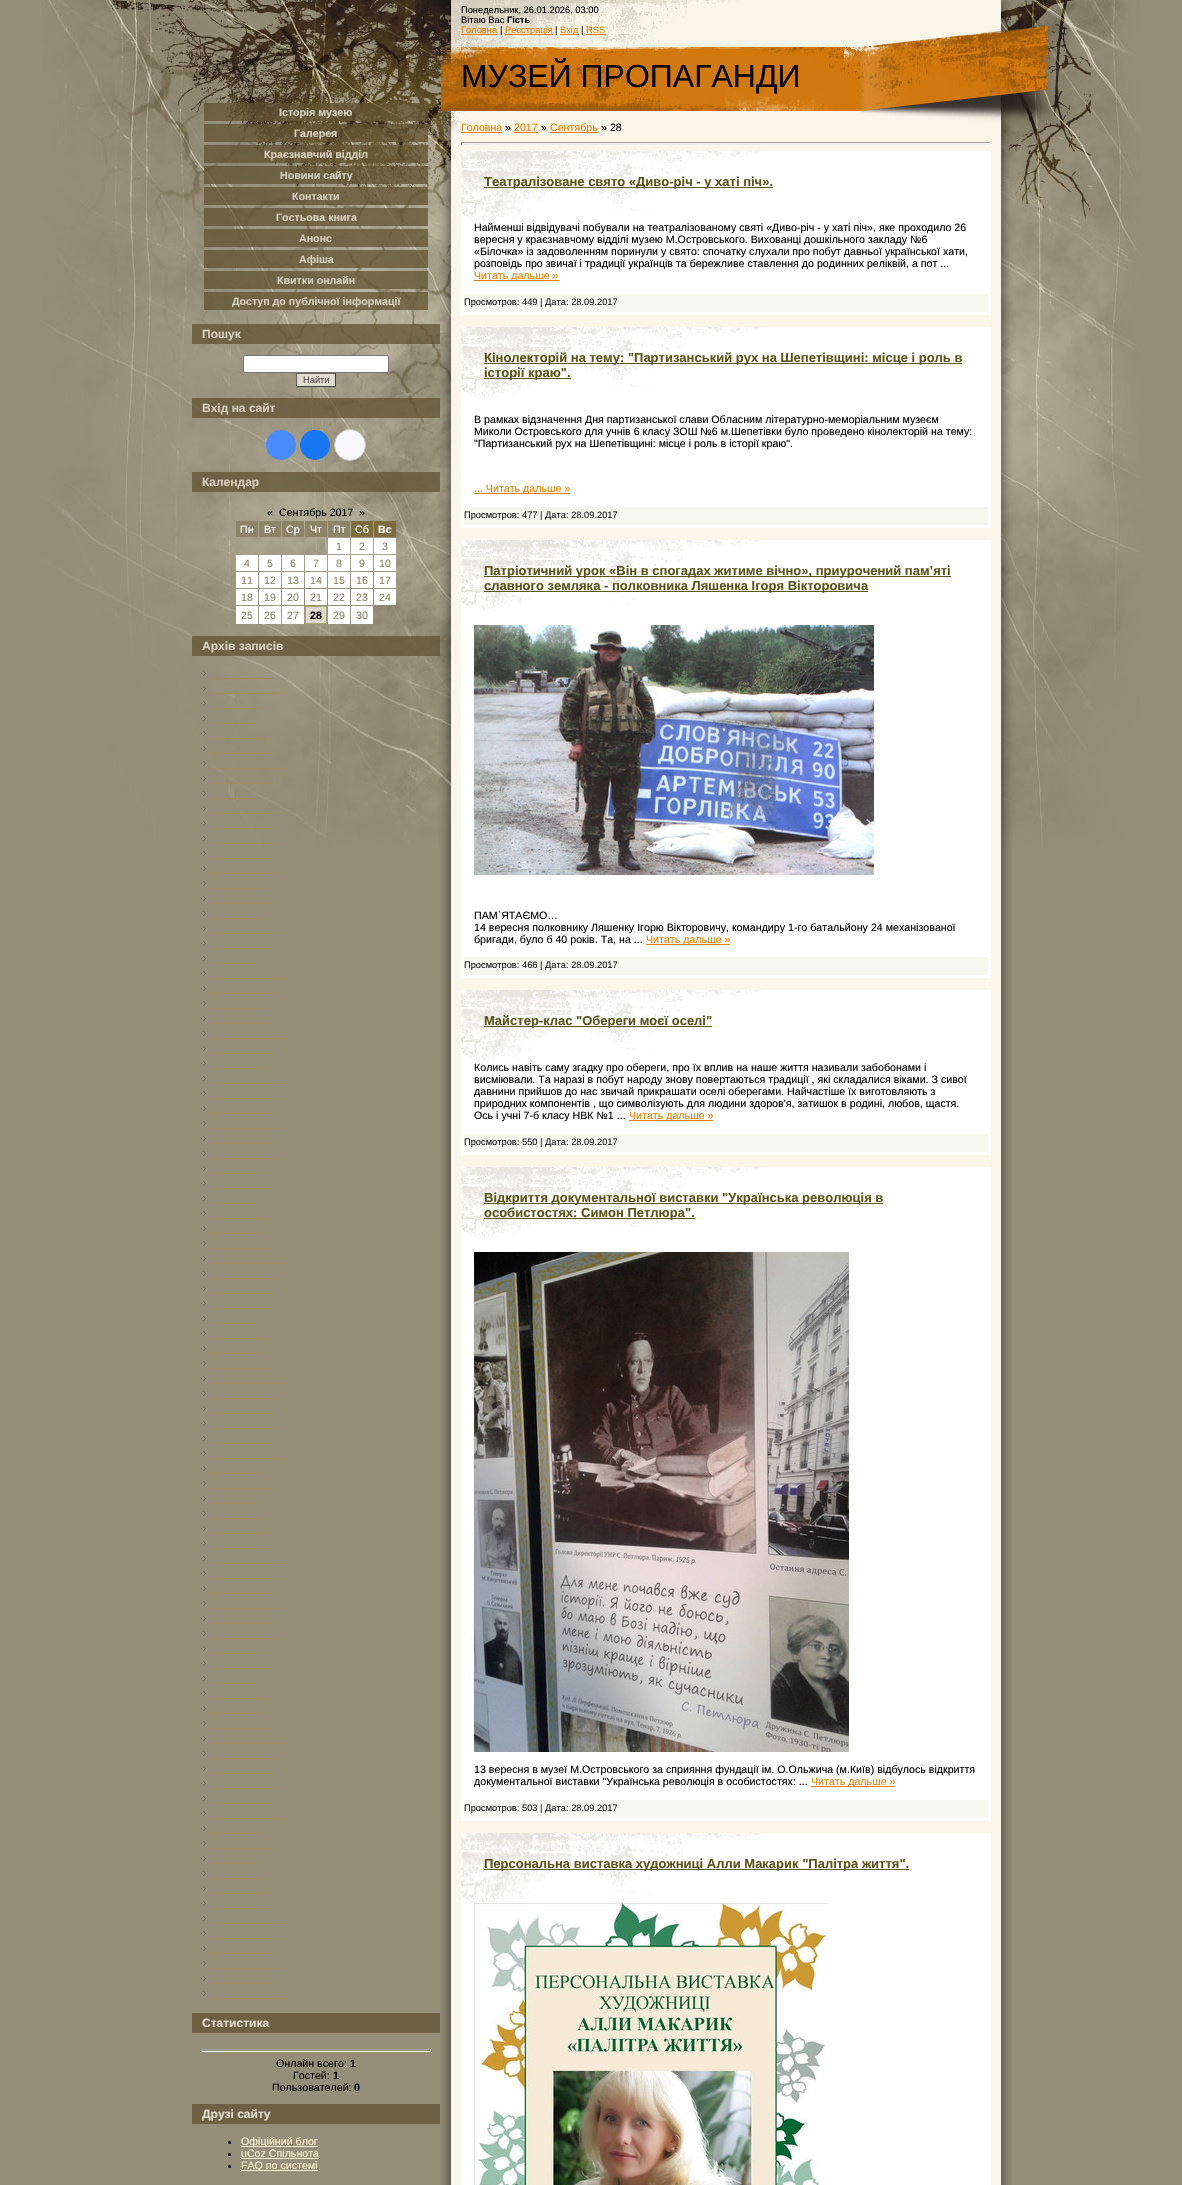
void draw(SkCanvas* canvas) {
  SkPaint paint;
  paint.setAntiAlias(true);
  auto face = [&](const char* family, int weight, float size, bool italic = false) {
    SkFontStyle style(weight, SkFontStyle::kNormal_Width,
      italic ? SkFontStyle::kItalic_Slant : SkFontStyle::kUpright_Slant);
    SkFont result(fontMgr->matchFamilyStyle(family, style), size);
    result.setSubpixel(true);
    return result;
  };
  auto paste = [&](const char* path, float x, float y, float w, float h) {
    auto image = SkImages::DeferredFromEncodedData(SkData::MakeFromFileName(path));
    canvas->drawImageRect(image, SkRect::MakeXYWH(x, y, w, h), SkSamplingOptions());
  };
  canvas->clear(0xff958e78);
  paste("img/1.png", 440, 848, 572, 1337);
  paste("img/2.png", 41, 0, 1100, 848);
  {
    const struct { float x, y, w, h; SkColor color; } items[] = {
      {204, 103, 224, 18, 0xbf605232},
      {204, 124, 224, 18, 0xbf605232},
      {204, 145, 224, 18, 0xbf605232},
      {204, 166, 224, 18, 0xbf605232},
      {204, 187, 224, 18, 0xbf605232},
      {204, 208, 224, 18, 0xbf605232},
      {204, 229, 224, 18, 0xbf605232},
      {204, 250, 224, 18, 0xbf605232},
      {204, 271, 224, 18, 0xbf605232},
      {204, 292, 224, 18, 0xbf605232},
      {192, 324, 248, 20, 0xbf605232},
    };
    for (auto [x, y, w, h, color] : items) {
      paint.setColor(color);
      canvas->drawRect(SkRect::MakeXYWH(x, y, w, h), paint);
    }
  }
  paint.setColor(0xffffffff);
  canvas->drawRoundRect(SkRect::MakeXYWH(243.5f, 355.5f, 145, 17), 1.5f, 1.5f, paint);
  paint.setStroke(true);
  paint.setStrokeWidth(1);
  paint.setColor(0xff767676);
  canvas->drawRoundRect(SkRect::MakeXYWH(243.5f, 355.5f, 145, 17), 1.5f, 1.5f, paint);
  paint.setStroke(false);
  {
    const struct { float x, y, w, h; SkColor color; } items[] = {
      {297, 374, 38, 12, 0xffe2ddd1},
      {296, 373, 40, 1, 0xff615e58},
      {335, 373, 1, 14, 0xff413f3b},
      {296, 386, 40, 1, 0xff413f3b},
      {296, 373, 1, 14, 0xff615e58},
      {192, 398, 248, 20, 0xbf605232},
    };
    for (auto [x, y, w, h, color] : items) {
      paint.setColor(color);
      canvas->drawRect(SkRect::MakeXYWH(x, y, w, h), paint);
    }
  }
  paint.setColor(0xff498bfa);
  canvas->drawCircle(281, 445, 15, paint);
  paint.setColor(0xff1877f2);
  canvas->drawCircle(315, 445, 15, paint);
  paint.setColor(0xfff8f8fc);
  canvas->drawCircle(350, 445, 15.5f, paint);
  paint.setStroke(true);
  paint.setColor(0xffc4c4c4);
  canvas->drawCircle(350, 445, 15.5f, paint);
  paint.setStroke(false);
  {
    const struct { float x, y, w, h; SkColor color; } items[] = {
      {192, 472, 248, 20, 0xbf605232},
      {236, 521, 22, 16, 0xff8c8368},
      {259, 521, 22, 16, 0xff8c8368},
      {282, 521, 22, 16, 0xff8c8368},
      {305, 521, 22, 16, 0xff8c8368},
      {328, 521, 22, 16, 0xff8c8368},
      {351, 521, 22, 16, 0xff7d6d3c},
      {374, 521, 22, 16, 0xff7d6d3c},
      {328, 538, 22, 16, 0xffffffff},
      {351, 538, 22, 16, 0xffffffff},
      {374, 538, 22, 16, 0xffffffff},
      {236, 555, 22, 16, 0xffffffff},
      {259, 555, 22, 16, 0xffffffff},
      {282, 555, 22, 16, 0xffffffff},
      {305, 555, 22, 16, 0xffffffff},
      {328, 555, 22, 16, 0xffffffff},
      {351, 555, 22, 16, 0xffffffff},
      {374, 555, 22, 16, 0xffffffff},
      {236, 572, 22, 16, 0xffffffff},
      {259, 572, 22, 16, 0xffffffff},
      {282, 572, 22, 16, 0xffffffff},
      {305, 572, 22, 16, 0xffffffff},
      {328, 572, 22, 16, 0xffffffff},
      {351, 572, 22, 16, 0xffffffff},
      {374, 572, 22, 16, 0xffffffff},
      {236, 589, 22, 16, 0xffffffff},
      {259, 589, 22, 16, 0xffffffff},
      {282, 589, 22, 16, 0xffffffff},
      {305, 589, 22, 16, 0xffffffff},
      {328, 589, 22, 16, 0xffffffff},
      {351, 589, 22, 16, 0xffffffff},
      {374, 589, 22, 16, 0xffffffff},
      {236, 606, 22, 18, 0xffffffff},
      {259, 606, 22, 18, 0xffffffff},
      {282, 606, 22, 18, 0xffffffff},
    };
    for (auto [x, y, w, h, color] : items) {
      paint.setColor(color);
      canvas->drawRect(SkRect::MakeXYWH(x, y, w, h), paint);
    }
  }
  paint.setColor(0xffdfdace);
  canvas->drawRect(SkRect::MakeXYWH(305.5f, 606.5f, 21, 17), paint);
  paint.setStroke(true);
  paint.setColor(0xffa3a974);
  canvas->drawRect(SkRect::MakeXYWH(305.5f, 606.5f, 21, 17), paint);
  paint.setStroke(false);
  {
    const struct { float x, y, w, h; SkColor color; } items[] = {
      {328, 606, 22, 18, 0xffffffff},
      {351, 606, 22, 18, 0xffffffff},
      {192, 636, 248, 20, 0xbf605232},
    };
    for (auto [x, y, w, h, color] : items) {
      paint.setColor(color);
      canvas->drawRect(SkRect::MakeXYWH(x, y, w, h), paint);
    }
  }
  paste("img/3.png", 201, 671, 5, 5);
  paint.setColor(0xff9d8f62);
  canvas->drawRect(SkRect::MakeXYWH(211, 678, 63, 1), paint);
  paste("img/4.png", 201, 686, 5, 5);
  canvas->drawRect(SkRect::MakeXYWH(211, 693, 70, 1), paint);
  paste("img/5.png", 201, 701, 5, 5);
  canvas->drawRect(SkRect::MakeXYWH(211, 708, 52, 1), paint);
  paste("img/5.png", 201, 716, 5, 5);
  canvas->drawRect(SkRect::MakeXYWH(211, 723, 47, 1), paint);
  paste("img/5.png", 201, 731, 5, 5);
  canvas->drawRect(SkRect::MakeXYWH(211, 738, 54, 1), paint);
  paste("img/5.png", 201, 746, 5, 5);
  canvas->drawRect(SkRect::MakeXYWH(211, 753, 64, 1), paint);
  paste("img/5.png", 201, 761, 5, 5);
  canvas->drawRect(SkRect::MakeXYWH(211, 768, 74, 1), paint);
  paste("img/5.png", 201, 776, 5, 5);
  canvas->drawRect(SkRect::MakeXYWH(211, 783, 64, 1), paint);
  paste("img/5.png", 201, 791, 5, 5);
  canvas->drawRect(SkRect::MakeXYWH(211, 798, 47, 1), paint);
  paste("img/5.png", 201, 806, 5, 5);
  canvas->drawRect(SkRect::MakeXYWH(211, 813, 68, 1), paint);
  paste("img/5.png", 201, 821, 5, 5);
  canvas->drawRect(SkRect::MakeXYWH(211, 828, 64, 1), paint);
  paste("img/5.png", 201, 836, 5, 5);
  canvas->drawRect(SkRect::MakeXYWH(211, 843, 68, 1), paint);
  paste("img/6.png", 201, 851, 5, 5);
  canvas->drawRect(SkRect::MakeXYWH(211, 858, 63, 1), paint);
  paste("img/6.png", 201, 866, 5, 5);
  canvas->drawRect(SkRect::MakeXYWH(211, 873, 70, 1), paint);
  paste("img/6.png", 201, 881, 5, 5);
  canvas->drawRect(SkRect::MakeXYWH(211, 888, 52, 1), paint);
  paste("img/6.png", 201, 896, 5, 5);
  canvas->drawRect(SkRect::MakeXYWH(211, 903, 63, 1), paint);
  paste("img/6.png", 201, 911, 5, 5);
  canvas->drawRect(SkRect::MakeXYWH(211, 918, 54, 1), paint);
  paste("img/6.png", 201, 926, 5, 5);
  canvas->drawRect(SkRect::MakeXYWH(211, 933, 68, 1), paint);
  paste("img/6.png", 201, 941, 5, 5);
  canvas->drawRect(SkRect::MakeXYWH(211, 948, 63, 1), paint);
  paste("img/6.png", 201, 956, 5, 5);
  canvas->drawRect(SkRect::MakeXYWH(211, 963, 47, 1), paint);
  paste("img/6.png", 201, 971, 5, 5);
  canvas->drawRect(SkRect::MakeXYWH(211, 978, 74, 1), paint);
  paste("img/6.png", 201, 986, 5, 5);
  canvas->drawRect(SkRect::MakeXYWH(211, 993, 68, 1), paint);
  paste("img/6.png", 201, 1001, 5, 5);
  canvas->drawRect(SkRect::MakeXYWH(211, 1008, 54, 1), paint);
  paste("img/6.png", 201, 1016, 5, 5);
  canvas->drawRect(SkRect::MakeXYWH(211, 1023, 59, 1), paint);
  paste("img/6.png", 201, 1031, 5, 5);
  canvas->drawRect(SkRect::MakeXYWH(211, 1038, 74, 1), paint);
  paste("img/6.png", 201, 1046, 5, 5);
  canvas->drawRect(SkRect::MakeXYWH(211, 1053, 64, 1), paint);
  paste("img/6.png", 201, 1061, 5, 5);
  canvas->drawRect(SkRect::MakeXYWH(211, 1068, 54, 1), paint);
  paste("img/6.png", 201, 1076, 5, 5);
  canvas->drawRect(SkRect::MakeXYWH(211, 1083, 74, 1), paint);
  paste("img/6.png", 201, 1091, 5, 5);
  canvas->drawRect(SkRect::MakeXYWH(211, 1098, 68, 1), paint);
  paste("img/6.png", 201, 1106, 5, 5);
  canvas->drawRect(SkRect::MakeXYWH(211, 1113, 64, 1), paint);
  paste("img/6.png", 201, 1121, 5, 5);
  canvas->drawRect(SkRect::MakeXYWH(211, 1128, 68, 1), paint);
  paste("img/6.png", 201, 1136, 5, 5);
  canvas->drawRect(SkRect::MakeXYWH(211, 1143, 63, 1), paint);
  paste("img/6.png", 201, 1151, 5, 5);
  canvas->drawRect(SkRect::MakeXYWH(211, 1158, 70, 1), paint);
  paste("img/6.png", 201, 1166, 5, 5);
  canvas->drawRect(SkRect::MakeXYWH(211, 1173, 52, 1), paint);
  paste("img/6.png", 201, 1181, 5, 5);
  canvas->drawRect(SkRect::MakeXYWH(211, 1188, 63, 1), paint);
  paste("img/6.png", 201, 1196, 5, 5);
  canvas->drawRect(SkRect::MakeXYWH(211, 1203, 47, 1), paint);
  paste("img/6.png", 201, 1211, 5, 5);
  canvas->drawRect(SkRect::MakeXYWH(211, 1218, 54, 1), paint);
  paste("img/6.png", 201, 1226, 5, 5);
  canvas->drawRect(SkRect::MakeXYWH(211, 1233, 54, 1), paint);
  paste("img/6.png", 201, 1241, 5, 5);
  canvas->drawRect(SkRect::MakeXYWH(211, 1248, 59, 1), paint);
  paste("img/6.png", 201, 1256, 5, 5);
  canvas->drawRect(SkRect::MakeXYWH(211, 1263, 74, 1), paint);
  paste("img/6.png", 201, 1271, 5, 5);
  canvas->drawRect(SkRect::MakeXYWH(211, 1278, 68, 1), paint);
  paste("img/6.png", 201, 1286, 5, 5);
  canvas->drawRect(SkRect::MakeXYWH(211, 1293, 64, 1), paint);
  paste("img/6.png", 201, 1301, 5, 5);
  canvas->drawRect(SkRect::MakeXYWH(211, 1308, 63, 1), paint);
  paste("img/6.png", 201, 1316, 5, 5);
  canvas->drawRect(SkRect::MakeXYWH(211, 1323, 47, 1), paint);
  paste("img/6.png", 201, 1331, 5, 5);
  canvas->drawRect(SkRect::MakeXYWH(211, 1338, 54, 1), paint);
  paste("img/6.png", 201, 1346, 5, 5);
  canvas->drawRect(SkRect::MakeXYWH(211, 1353, 54, 1), paint);
  paste("img/6.png", 201, 1361, 5, 5);
  canvas->drawRect(SkRect::MakeXYWH(211, 1368, 59, 1), paint);
  paste("img/6.png", 201, 1376, 5, 5);
  canvas->drawRect(SkRect::MakeXYWH(211, 1383, 74, 1), paint);
  paste("img/6.png", 201, 1391, 5, 5);
  canvas->drawRect(SkRect::MakeXYWH(211, 1398, 68, 1), paint);
  paste("img/6.png", 201, 1406, 5, 5);
  canvas->drawRect(SkRect::MakeXYWH(211, 1413, 64, 1), paint);
  paste("img/6.png", 201, 1421, 5, 5);
  canvas->drawRect(SkRect::MakeXYWH(211, 1428, 68, 1), paint);
  paste("img/6.png", 201, 1436, 5, 5);
  canvas->drawRect(SkRect::MakeXYWH(211, 1443, 63, 1), paint);
  paste("img/6.png", 201, 1451, 5, 5);
  canvas->drawRect(SkRect::MakeXYWH(211, 1458, 70, 1), paint);
  paste("img/6.png", 201, 1466, 5, 5);
  canvas->drawRect(SkRect::MakeXYWH(211, 1473, 52, 1), paint);
  paste("img/6.png", 201, 1481, 5, 5);
  canvas->drawRect(SkRect::MakeXYWH(211, 1488, 63, 1), paint);
  paste("img/6.png", 201, 1496, 5, 5);
  canvas->drawRect(SkRect::MakeXYWH(211, 1503, 47, 1), paint);
  paste("img/6.png", 201, 1511, 5, 5);
  canvas->drawRect(SkRect::MakeXYWH(211, 1518, 54, 1), paint);
  paste("img/6.png", 201, 1526, 5, 5);
  canvas->drawRect(SkRect::MakeXYWH(211, 1533, 54, 1), paint);
  paste("img/6.png", 201, 1541, 5, 5);
  canvas->drawRect(SkRect::MakeXYWH(211, 1548, 59, 1), paint);
  paste("img/6.png", 201, 1556, 5, 5);
  canvas->drawRect(SkRect::MakeXYWH(211, 1563, 74, 1), paint);
  paste("img/6.png", 201, 1571, 5, 5);
  canvas->drawRect(SkRect::MakeXYWH(211, 1578, 68, 1), paint);
  paste("img/6.png", 201, 1586, 5, 5);
  canvas->drawRect(SkRect::MakeXYWH(211, 1593, 64, 1), paint);
  paste("img/6.png", 201, 1601, 5, 5);
  canvas->drawRect(SkRect::MakeXYWH(211, 1608, 68, 1), paint);
  paste("img/6.png", 201, 1616, 5, 5);
  canvas->drawRect(SkRect::MakeXYWH(211, 1623, 63, 1), paint);
  paste("img/6.png", 201, 1631, 5, 5);
  canvas->drawRect(SkRect::MakeXYWH(211, 1638, 70, 1), paint);
  paste("img/6.png", 201, 1646, 5, 5);
  canvas->drawRect(SkRect::MakeXYWH(211, 1653, 52, 1), paint);
  paste("img/6.png", 201, 1661, 5, 5);
  canvas->drawRect(SkRect::MakeXYWH(211, 1668, 63, 1), paint);
  paste("img/6.png", 201, 1676, 5, 5);
  canvas->drawRect(SkRect::MakeXYWH(211, 1683, 47, 1), paint);
  paste("img/6.png", 201, 1691, 5, 5);
  canvas->drawRect(SkRect::MakeXYWH(211, 1698, 54, 1), paint);
  paste("img/6.png", 201, 1706, 5, 5);
  canvas->drawRect(SkRect::MakeXYWH(211, 1713, 54, 1), paint);
  paste("img/6.png", 201, 1721, 5, 5);
  canvas->drawRect(SkRect::MakeXYWH(211, 1728, 59, 1), paint);
  paste("img/6.png", 201, 1736, 5, 5);
  canvas->drawRect(SkRect::MakeXYWH(211, 1743, 74, 1), paint);
  paste("img/6.png", 201, 1751, 5, 5);
  canvas->drawRect(SkRect::MakeXYWH(211, 1758, 68, 1), paint);
  paste("img/6.png", 201, 1766, 5, 5);
  canvas->drawRect(SkRect::MakeXYWH(211, 1773, 64, 1), paint);
  paste("img/6.png", 201, 1781, 5, 5);
  canvas->drawRect(SkRect::MakeXYWH(211, 1788, 68, 1), paint);
  paste("img/6.png", 201, 1796, 5, 5);
  canvas->drawRect(SkRect::MakeXYWH(211, 1803, 63, 1), paint);
  paste("img/6.png", 201, 1811, 5, 5);
  canvas->drawRect(SkRect::MakeXYWH(211, 1818, 70, 1), paint);
  paste("img/6.png", 201, 1826, 5, 5);
  canvas->drawRect(SkRect::MakeXYWH(211, 1833, 52, 1), paint);
  paste("img/6.png", 201, 1841, 5, 5);
  canvas->drawRect(SkRect::MakeXYWH(211, 1848, 63, 1), paint);
  paste("img/6.png", 201, 1856, 5, 5);
  canvas->drawRect(SkRect::MakeXYWH(211, 1863, 47, 1), paint);
  paste("img/6.png", 201, 1871, 5, 5);
  canvas->drawRect(SkRect::MakeXYWH(211, 1878, 54, 1), paint);
  paste("img/6.png", 201, 1886, 5, 5);
  canvas->drawRect(SkRect::MakeXYWH(211, 1893, 54, 1), paint);
  paste("img/6.png", 201, 1901, 5, 5);
  canvas->drawRect(SkRect::MakeXYWH(211, 1908, 59, 1), paint);
  paste("img/6.png", 201, 1916, 5, 5);
  canvas->drawRect(SkRect::MakeXYWH(211, 1923, 74, 1), paint);
  paste("img/6.png", 201, 1931, 5, 5);
  canvas->drawRect(SkRect::MakeXYWH(211, 1938, 68, 1), paint);
  paste("img/6.png", 201, 1946, 5, 5);
  canvas->drawRect(SkRect::MakeXYWH(211, 1953, 64, 1), paint);
  paste("img/6.png", 201, 1961, 5, 5);
  canvas->drawRect(SkRect::MakeXYWH(211, 1968, 68, 1), paint);
  paste("img/6.png", 201, 1976, 5, 5);
  canvas->drawRect(SkRect::MakeXYWH(211, 1983, 63, 1), paint);
  paste("img/6.png", 201, 1991, 5, 5);
  {
    const struct { float x, y, w, h; SkColor color; } items[] = {
      {211, 1998, 74, 1, 0xff9d8f62},
      {192, 2013, 248, 20, 0xff6d6144},
      {201, 2049, 230, 1, 0xff9f9f9f},
      {430, 2049, 1, 3, 0xffeeeeee},
      {201, 2051, 230, 1, 0xffeeeeee},
      {201, 2049, 1, 3, 0xff9f9f9f},
      {192, 2104, 248, 20, 0xff6d6144},
    };
    for (auto [x, y, w, h, color] : items) {
      paint.setColor(color);
      canvas->drawRect(SkRect::MakeXYWH(x, y, w, h), paint);
    }
  }
  paint.setColor(0xff000000);
  canvas->drawCircle(229.5f, 2142.5f, 1.5f, paint);
  paint.setColor(0xfffaf0d1);
  canvas->drawRect(SkRect::MakeXYWH(241, 2146, 77, 1), paint);
  paint.setColor(0xff000000);
  canvas->drawCircle(229.5f, 2154.5f, 1.5f, paint);
  paint.setColor(0xfffaf0d1);
  canvas->drawRect(SkRect::MakeXYWH(241, 2158, 78, 1), paint);
  paint.setColor(0xff000000);
  canvas->drawCircle(229.5f, 2166.5f, 1.5f, paint);
  {
    const struct { float x, y, w, h; SkColor color; } items[] = {
      {241, 2170, 77, 1, 0xfffaf0d1},
      {461, 34, 36, 1, 0xffe97f00},
      {505, 34, 48, 1, 0xffe97f00},
      {560, 34, 19, 1, 0xffe97f00},
      {586, 34, 20, 1, 0xffe97f00},
      {461, 132, 41, 1, 0xffe97f00},
      {514, 132, 24, 1, 0xffe97f00},
      {550, 132, 48, 1, 0xffe97f00},
      {461, 142, 530, 1, 0xff9f9f9f},
      {990, 142, 1, 3, 0xffeeeeee},
      {461, 144, 530, 1, 0xffeeeeee},
      {461, 142, 1, 3, 0xff9f9f9f},
      {461, 151, 530, 164, 0xffffffff},
    };
    for (auto [x, y, w, h, color] : items) {
      paint.setColor(color);
      canvas->drawRect(SkRect::MakeXYWH(x, y, w, h), paint);
    }
  }
  paste("img/7.png", 461, 151, 301, 72);
  {
    const struct { float x, y, w, h; SkColor color; } items[] = {
      {484, 187, 289, 1, 0xff595418},
      {474, 280, 85, 1, 0xffe97f00},
      {464, 294, 524, 18, 0xfff6f7ef},
      {461, 327, 530, 201, 0xffffffff},
    };
    for (auto [x, y, w, h, color] : items) {
      paint.setColor(color);
      canvas->drawRect(SkRect::MakeXYWH(x, y, w, h), paint);
    }
  }
  paste("img/7.png", 461, 327, 301, 72);
  {
    const struct { float x, y, w, h; SkColor color; } items[] = {
      {484, 363, 478, 1, 0xff595418},
      {484, 378, 87, 1, 0xff595418},
      {474, 493, 96, 1, 0xffe97f00},
      {464, 507, 524, 18, 0xfff6f7ef},
      {461, 540, 530, 438, 0xffffffff},
    };
    for (auto [x, y, w, h, color] : items) {
      paint.setColor(color);
      canvas->drawRect(SkRect::MakeXYWH(x, y, w, h), paint);
    }
  }
  paste("img/7.png", 461, 540, 301, 72);
  paint.setColor(0xff595418);
  canvas->drawRect(SkRect::MakeXYWH(484, 576, 467, 1), paint);
  canvas->drawRect(SkRect::MakeXYWH(484, 591, 384, 1), paint);
  paste("img/8.png", 474, 625, 400, 250);
  {
    const struct { float x, y, w, h; SkColor color; } items[] = {
      {646, 944, 84, 1, 0xffe97f00},
      {464, 957, 524, 18, 0xfff6f7ef},
      {461, 990, 530, 165, 0xffffffff},
    };
    for (auto [x, y, w, h, color] : items) {
      paint.setColor(color);
      canvas->drawRect(SkRect::MakeXYWH(x, y, w, h), paint);
    }
  }
  paste("img/7.png", 461, 990, 301, 72);
  {
    const struct { float x, y, w, h; SkColor color; } items[] = {
      {484, 1026, 228, 1, 0xff595418},
      {629, 1120, 84, 1, 0xffe97f00},
      {464, 1134, 524, 18, 0xfff6f7ef},
      {461, 1167, 530, 654, 0xffffffff},
    };
    for (auto [x, y, w, h, color] : items) {
      paint.setColor(color);
      canvas->drawRect(SkRect::MakeXYWH(x, y, w, h), paint);
    }
  }
  paste("img/7.png", 461, 1167, 301, 72);
  paint.setColor(0xff595418);
  canvas->drawRect(SkRect::MakeXYWH(484, 1203, 399, 1), paint);
  canvas->drawRect(SkRect::MakeXYWH(484, 1218, 211, 1), paint);
  paste("img/9.png", 474, 1252, 375, 500);
  {
    const struct { float x, y, w, h; SkColor color; } items[] = {
      {811, 1786, 84, 1, 0xffe97f00},
      {464, 1800, 524, 18, 0xfff6f7ef},
      {461, 1833, 530, 352, 0xffffffff},
    };
    for (auto [x, y, w, h, color] : items) {
      paint.setColor(color);
      canvas->drawRect(SkRect::MakeXYWH(x, y, w, h), paint);
    }
  }
  paste("img/10.png", 461, 1833, 301, 73);
  paint.setColor(0xff595418);
  canvas->drawRect(SkRect::MakeXYWH(484, 1869, 425, 1), paint);
  paste("img/11.png", 474, 1903, 354, 282);
  auto f0 = face("Liberation Sans", 700, 10.65f);
  paint.setColor(0xffd8d1bf);
  {
    const struct { const char* s; float x, y; } items[] = {
      {"Історія музею", 279, 116},
      {"Галерея", 294, 137},
      {"Краєзнавчий відділ", 264, 158},
      {"Новини сайту", 280, 179},
      {"Контакти", 292, 200},
      {"Гостьова книга", 276, 221},
      {"Анонс", 299, 242},
      {"Афіша", 299, 263},
      {"Квитки онлайн", 277, 284},
      {"Доступ до публічної інформації", 232, 305},
    };
    for (auto [s, x, y] : items) {
      canvas->drawString(s, x, y, f0, paint);
    }
  }
  auto f1 = face("Liberation Sans", 700, 12);
  canvas->drawString("Пошук", 202, 338, f1, paint);
  auto f2 = face("Liberation Sans", 400, 9.3f);
  paint.setColor(0xff4f4d48);
  canvas->drawString("Найти", 303, 383, f2, paint);
  paint.setColor(0xffd8d1bf);
  canvas->drawString("Вхід на сайт", 202, 412, f1, paint);
  canvas->drawString("Календар", 202, 486, f1, paint);
  auto f3 = face("Liberation Sans", 400, 10.65f);
  paint.setColor(0xff000000);
  {
    const struct { const char* s; float x, y; } items[] = {
      {"«", 267, 516},
      {"Сентябрь 2017", 279, 516},
      {"»", 359, 516},
    };
    for (auto [s, x, y] : items) {
      canvas->drawString(s, x, y, f3, paint);
    }
  }
  paint.setColor(0xffffffff);
  {
    const struct { const char* s; float x, y; } items[] = {
      {"Пн", 240, 533},
      {"Вт", 264, 533},
      {"Ср", 286, 533},
      {"Чт", 310, 533},
      {"Пт", 333, 533},
      {"Сб", 355, 533},
    };
    for (auto [s, x, y] : items) {
      canvas->drawString(s, x, y, f3, paint);
    }
  }
  canvas->drawString("Вс", 378, 533, f0, paint);
  paint.setColor(0xff8c8368);
  {
    const struct { const char* s; float x, y; } items[] = {
      {"1", 336, 550},
      {"2", 359, 550},
      {"3", 382, 550},
      {"4", 244, 567},
      {"5", 267, 567},
      {"6", 290, 567},
      {"7", 313, 567},
      {"8", 336, 567},
      {"9", 359, 567},
      {"10", 379, 567},
      {"11", 241, 584},
      {"12", 264, 584},
      {"13", 287, 584},
      {"14", 310, 584},
      {"15", 333, 584},
      {"16", 356, 584},
      {"17", 379, 584},
      {"18", 241, 601},
      {"19", 264, 601},
      {"20", 287, 601},
      {"21", 310, 601},
      {"22", 333, 601},
      {"23", 356, 601},
      {"24", 379, 601},
      {"25", 241, 619},
      {"26", 264, 619},
      {"27", 287, 619},
    };
    for (auto [s, x, y] : items) {
      canvas->drawString(s, x, y, f3, paint);
    }
  }
  paint.setColor(0xff000000);
  canvas->drawString("28", 310, 619, f0, paint);
  paint.setColor(0xff8c8368);
  canvas->drawString("29", 333, 619, f3, paint);
  canvas->drawString("30", 356, 619, f3, paint);
  paint.setColor(0xffd8d1bf);
  canvas->drawString("Архів записів", 202, 650, f1, paint);
  paint.setColor(0xffe1dcce);
  canvas->drawString("Статистика", 202, 2027, f1, paint);
  paint.setColor(0xff000000);
  canvas->drawString("Онлайн всего:", 276, 2067, f3, paint);
  canvas->drawString("1", 350, 2067, f0, paint);
  canvas->drawString("Гостей:", 293, 2079, f3, paint);
  canvas->drawString("1", 333, 2079, f0, paint);
  canvas->drawString("Пользователей:", 272, 2091, f3, paint);
  canvas->drawString("0", 354, 2091, f0, paint);
  paint.setColor(0xffe1dcce);
  canvas->drawString("Друзі сайту", 202, 2118, f1, paint);
  paint.setColor(0xfffaf0d1);
  {
    const struct { const char* s; float x, y; } items[] = {
      {"Офіційний блог", 241, 2145},
      {"uCoz Спільнота", 241, 2157},
      {"FAQ по системі", 241, 2169},
    };
    for (auto [s, x, y] : items) {
      canvas->drawString(s, x, y, f3, paint);
    }
  }
  paint.setColor(0xff000000);
  canvas->drawString("Понедельник, 26.01.2026, 03:00", 461, 13, f2, paint);
  canvas->drawString("Вітаю Вас", 461, 23, f2, paint);
  auto f4 = face("Liberation Sans", 700, 9.3f);
  canvas->drawString("Гість", 507, 23, f4, paint);
  paint.setColor(0xffe97f00);
  canvas->drawString("Головна", 461, 33, f2, paint);
  paint.setColor(0xff000000);
  canvas->drawString("|", 500, 33, f2, paint);
  paint.setColor(0xffe97f00);
  canvas->drawString("Реєстрація", 505, 33, f2, paint);
  paint.setColor(0xff000000);
  canvas->drawString("|", 555, 33, f2, paint);
  paint.setColor(0xffe97f00);
  canvas->drawString("Вхід", 560, 33, f2, paint);
  paint.setColor(0xff000000);
  canvas->drawString("|", 581, 33, f2, paint);
  paint.setColor(0xffe97f00);
  canvas->drawString("RSS", 586, 33, f2, paint);
  auto f5 = face("Liberation Sans", 400, 32);
  paint.setColor(0xff000000);
  canvas->drawString("МУЗЕЙ ПРОПАГАНДИ", 461, 87, f5, paint);
  paint.setColor(0xffe97f00);
  canvas->drawString("Головна", 461, 131, f3, paint);
  paint.setColor(0xff000000);
  canvas->drawString("»", 505, 131, f3, paint);
  paint.setColor(0xffe97f00);
  canvas->drawString("2017", 514, 131, f3, paint);
  paint.setColor(0xff000000);
  canvas->drawString("»", 541, 131, f3, paint);
  paint.setColor(0xffe97f00);
  canvas->drawString("Сентябрь", 550, 131, f3, paint);
  paint.setColor(0xff000000);
  canvas->drawString("» 28", 601, 131, f3, paint);
  auto f6 = face("Liberation Sans", 700, 13);
  paint.setColor(0xff595418);
  canvas->drawString("Театралізоване свято «Диво-річ - у хаті піч».", 484, 186, f6, paint);
  paint.setColor(0xff000000);
  {
    const struct { const char* s; float x, y; } items[] = {
      {"Найменші відвідувачі побували на театралізованому святі «Диво-річ - у хаті піч», яке проходило 26", 474, 231},
      {"вересня у краєзнавчому відділі музею М.Островського. Вихованці дошкільного закладу №6", 474, 243},
      {"«Білочка» із задоволенням поринули у свято: спочатку слухали про побут давньої української хати,", 474, 255},
      {"розповідь про звичаї і традиції українців та бережливе ставлення до родинних реліквій, а пот ...", 474, 267},
    };
    for (auto [s, x, y] : items) {
      canvas->drawString(s, x, y, f3, paint);
    }
  }
  paint.setColor(0xffe97f00);
  canvas->drawString("Читать дальше »", 474, 279, f3, paint);
  paint.setColor(0xff1a1a1a);
  canvas->drawString("Просмотров: 449 | Дата: 28.09.2017", 464, 305, f2, paint);
  paint.setColor(0xff595418);
  canvas->drawString("Кінолекторій на тему: \"Партизанський рух на Шепетівщині: місце і роль в", 484, 362, f6, paint);
  canvas->drawString("історії краю\".", 484, 377, f6, paint);
  paint.setColor(0xff000000);
  {
    const struct { const char* s; float x, y; } items[] = {
      {"В рамках відзначення Дня партизанської слави Обласним літературно-меморіальним музеєм", 474, 423},
      {"Миколи Островського для учнів 6 класу ЗОШ №6 м.Шепетівки було проведено кінолекторій на тему:", 474, 435},
      {"\"Партизанський рух на Шепетівщині: місце і роль в історії краю\".", 474, 447},
    };
    for (auto [s, x, y] : items) {
      canvas->drawString(s, x, y, f3, paint);
    }
  }
  paint.setColor(0xffe97f00);
  canvas->drawString("... Читать дальше »", 474, 492, f3, paint);
  paint.setColor(0xff1a1a1a);
  canvas->drawString("Просмотров: 477 | Дата: 28.09.2017", 464, 518, f2, paint);
  paint.setColor(0xff595418);
  canvas->drawString("Патріотичний урок «Він в спогадах житиме вічно», приурочений пам’яті", 484, 575, f6, paint);
  canvas->drawString("славного земляка - полковника Ляшенка Ігоря Вікторовича", 484, 590, f6, paint);
  paint.setColor(0xff000000);
  {
    const struct { const char* s; float x, y; } items[] = {
      {"ПАМ`ЯТАЄМО…", 474, 919},
      {"14 вересня полковнику Ляшенку Ігорю Вікторовичу, командиру 1-го батальйону 24 механізованої", 474, 931},
      {"бригади, було б 40 років. Та, на ...", 474, 943},
    };
    for (auto [s, x, y] : items) {
      canvas->drawString(s, x, y, f3, paint);
    }
  }
  paint.setColor(0xffe97f00);
  canvas->drawString("Читать дальше »", 646, 943, f3, paint);
  paint.setColor(0xff1a1a1a);
  canvas->drawString("Просмотров: 466 | Дата: 28.09.2017", 464, 968, f2, paint);
  paint.setColor(0xff595418);
  canvas->drawString("Майстер-клас \"Обереги моєї оселі\"", 484, 1025, f6, paint);
  paint.setColor(0xff000000);
  {
    const struct { const char* s; float x, y; } items[] = {
      {"Колись навіть саму згадку про обереги, про їх вплив на наше життя називали забобонами і", 474, 1071},
      {"висміювали. Та наразі в побут народу знову повертаються традиції , які складалися віками. З сивої", 474, 1083},
      {"давнини прийшов до нас звичай прикрашати оселі оберегами. Найчастіше їх виготовляють з", 474, 1095},
      {"природних компонентів , що символізують для людини здоров'я, затишок в родині, любов, щастя.", 474, 1107},
      {"Ось і учні 7-б класу НВК №1 ...", 474, 1119},
    };
    for (auto [s, x, y] : items) {
      canvas->drawString(s, x, y, f3, paint);
    }
  }
  paint.setColor(0xffe97f00);
  canvas->drawString("Читать дальше »", 629, 1119, f3, paint);
  paint.setColor(0xff1a1a1a);
  canvas->drawString("Просмотров: 550 | Дата: 28.09.2017", 464, 1145, f2, paint);
  paint.setColor(0xff595418);
  canvas->drawString("Відкриття документальної виставки \"Українська революція в", 484, 1202, f6, paint);
  canvas->drawString("особистостях: Симон Петлюра\".", 484, 1217, f6, paint);
  paint.setColor(0xff000000);
  canvas->drawString("13 вересня в музеї М.Островського за сприяння фундації ім. О.Ольжича (м.Київ) відбулось відкриття", 474, 1773, f3, paint);
  canvas->drawString("документальної виставки \"Українська революція в особистостях: ...", 474, 1785, f3, paint);
  paint.setColor(0xffe97f00);
  canvas->drawString("Читать дальше »", 811, 1785, f3, paint);
  paint.setColor(0xff1a1a1a);
  canvas->drawString("Просмотров: 503 | Дата: 28.09.2017", 464, 1811, f2, paint);
  paint.setColor(0xff595418);
  canvas->drawString("Персональна виставка художниці Алли Макарик \"Палітра життя\".", 484, 1868, f6, paint);
}
